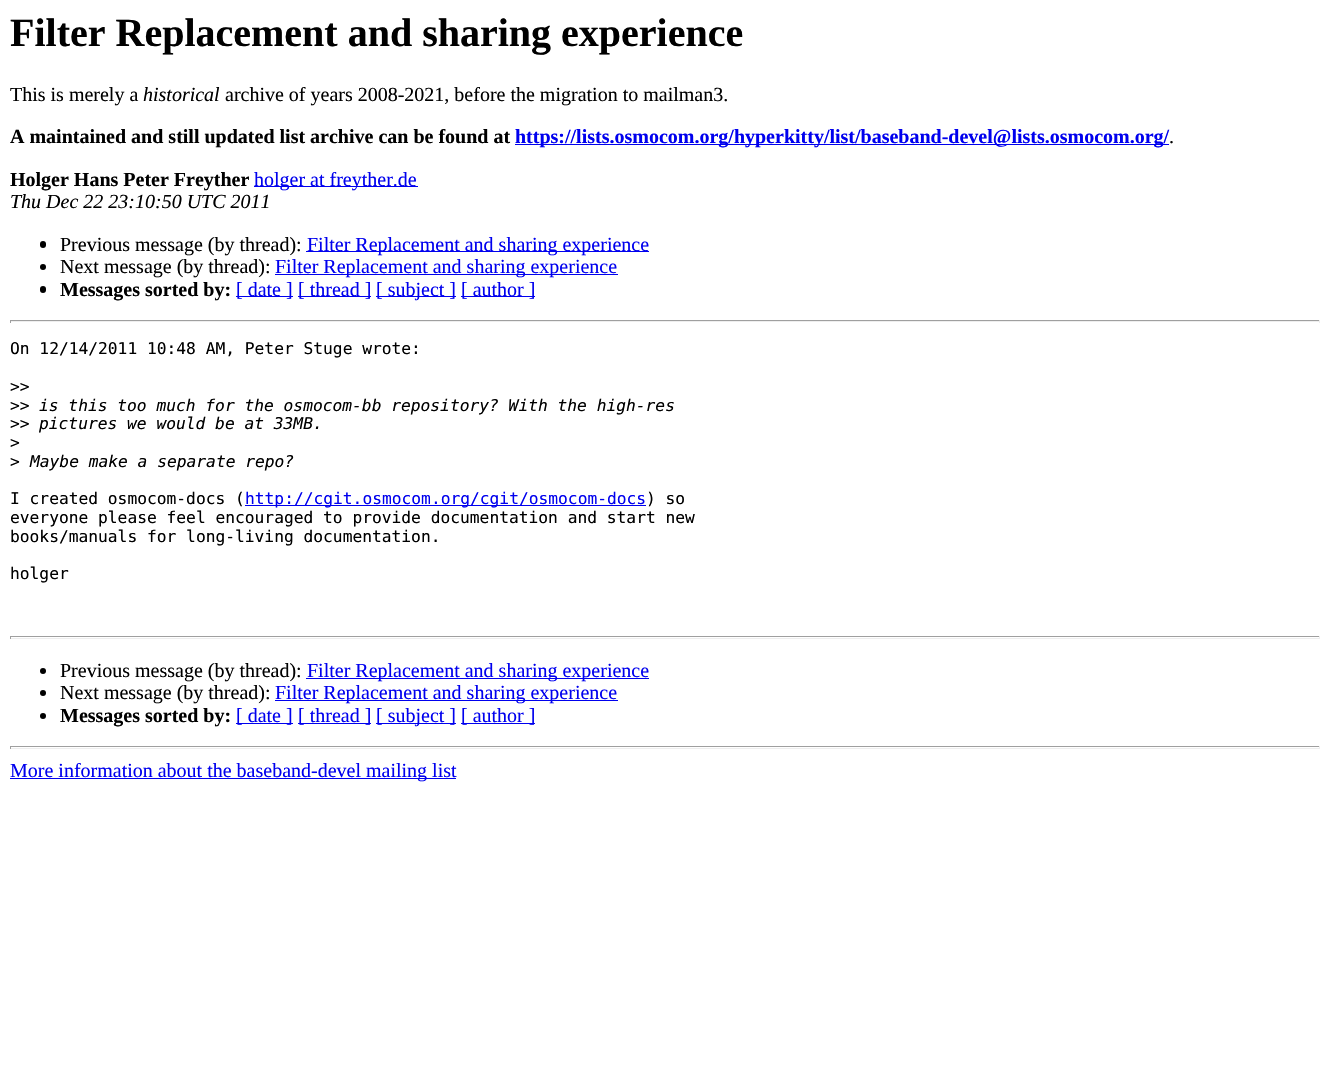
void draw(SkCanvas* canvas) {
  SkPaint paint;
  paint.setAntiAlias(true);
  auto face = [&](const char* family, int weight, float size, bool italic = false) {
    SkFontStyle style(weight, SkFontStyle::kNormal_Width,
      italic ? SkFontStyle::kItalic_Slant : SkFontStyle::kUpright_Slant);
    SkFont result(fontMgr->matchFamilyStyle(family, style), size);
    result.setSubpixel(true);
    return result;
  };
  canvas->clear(0xffffffff);
  paint.setColor(0xff0000ee);
  canvas->drawRect(SkRect::MakeXYWH(515, 144, 654, 1), paint);
  canvas->drawRect(SkRect::MakeXYWH(254, 186, 164, 1), paint);
  paint.setColor(0xff000000);
  canvas->drawRoundRect(SkRect::MakeXYWH(40, 241, 6, 7), 3, 3, paint);
  paint.setColor(0xff0000ee);
  canvas->drawRect(SkRect::MakeXYWH(306, 251, 343, 1), paint);
  paint.setColor(0xff000000);
  canvas->drawCircle(43, 267, 3, paint);
  paint.setColor(0xff0000ee);
  canvas->drawRect(SkRect::MakeXYWH(275, 274, 343, 1), paint);
  paint.setColor(0xff000000);
  canvas->drawRoundRect(SkRect::MakeXYWH(40, 286, 6, 7), 3, 3, paint);
  {
    const struct { float x, y, w, h; SkColor color; } items[] = {
      {236, 296, 57, 1, 0xff0000ee},
      {298, 296, 73, 1, 0xff0000ee},
      {376, 296, 80, 1, 0xff0000ee},
      {461, 296, 74, 1, 0xff0000ee},
      {10, 320, 1310, 1, 0xff9f9f9f},
      {1319, 320, 1, 3, 0xffeeeeee},
      {10, 321, 1310, 1, 0xffeeeeee},
      {10, 320, 1, 3, 0xff9f9f9f},
      {245, 505, 401, 1, 0xff0000ee},
      {10, 636, 1310, 1, 0xff9f9f9f},
      {1319, 636, 1, 3, 0xffeeeeee},
      {10, 638, 1310, 1, 0xffeeeeee},
      {10, 636, 1, 3, 0xff9f9f9f},
    };
    for (auto [x, y, w, h, color] : items) {
      paint.setColor(color);
      canvas->drawRect(SkRect::MakeXYWH(x, y, w, h), paint);
    }
  }
  paint.setColor(0xff000000);
  canvas->drawCircle(43, 671, 3, paint);
  paint.setColor(0xff0000ee);
  canvas->drawRect(SkRect::MakeXYWH(306, 678, 343, 1), paint);
  paint.setColor(0xff000000);
  canvas->drawCircle(43, 693, 3, paint);
  paint.setColor(0xff0000ee);
  canvas->drawRect(SkRect::MakeXYWH(275, 700, 343, 1), paint);
  paint.setColor(0xff000000);
  canvas->drawCircle(43, 716, 3, paint);
  {
    const struct { float x, y, w, h; SkColor color; } items[] = {
      {236, 723, 57, 1, 0xff0000ee},
      {298, 723, 73, 1, 0xff0000ee},
      {376, 723, 80, 1, 0xff0000ee},
      {461, 723, 74, 1, 0xff0000ee},
      {10, 746, 1310, 1, 0xff9f9f9f},
      {1319, 746, 1, 3, 0xffeeeeee},
      {10, 748, 1310, 1, 0xffeeeeee},
      {10, 746, 1, 3, 0xff9f9f9f},
      {10, 778, 446, 1, 0xff0000ee},
    };
    for (auto [x, y, w, h, color] : items) {
      paint.setColor(color);
      canvas->drawRect(SkRect::MakeXYWH(x, y, w, h), paint);
    }
  }
  auto f0 = face("Liberation Serif", 700, 40);
  paint.setColor(0xff000000);
  canvas->drawString("Filter Replacement and sharing experience", 10, 46, f0, paint);
  auto f1 = face("Liberation Serif", 400, 20);
  canvas->drawString("This is merely a", 10, 101, f1, paint);
  auto f2 = face("Liberation Serif", 400, 20, true);
  canvas->drawString("historical", 143, 101, f2, paint);
  canvas->drawString("archive of years 2008-2021, before the migration to mailman3.", 225, 101, f1, paint);
  auto f3 = face("Liberation Serif", 700, 20);
  canvas->drawString("A maintained and still updated list archive can be found at", 10, 143, f3, paint);
  paint.setColor(0xff0000ee);
  canvas->drawString("https://lists.osmocom.org/hyperkitty/list/baseband-devel@lists.osmocom.org/", 515, 143, f3, paint);
  paint.setColor(0xff000000);
  canvas->drawString(".", 1169, 143, f1, paint);
  canvas->drawString("Holger Hans Peter Freyther", 10, 186, f3, paint);
  paint.setColor(0xff0000ee);
  canvas->drawString("holger at freyther.de", 254, 186, f1, paint);
  paint.setColor(0xff000000);
  canvas->drawString("Thu Dec 22 23:10:50 UTC 2011", 10, 208, f2, paint);
  canvas->drawString("Previous message (by thread):", 60, 251, f1, paint);
  paint.setColor(0xff0000ee);
  canvas->drawString("Filter Replacement and sharing experience", 307, 251, f1, paint);
  paint.setColor(0xff000000);
  canvas->drawString("Next message (by thread):", 60, 273, f1, paint);
  paint.setColor(0xff0000ee);
  canvas->drawString("Filter Replacement and sharing experience", 275, 273, f1, paint);
  paint.setColor(0xff000000);
  canvas->drawString("Messages sorted by:", 60, 296, f3, paint);
  paint.setColor(0xff0000ee);
  {
    const struct { const char* s; float x, y; } items[] = {
      {"[ date ]", 236, 296},
      {"[ thread ]", 298, 296},
      {"[ subject ]", 376, 296},
      {"[ author ]", 461, 296},
    };
    for (auto [s, x, y] : items) {
      canvas->drawString(s, x, y, f1, paint);
    }
  }
  auto f4 = face("DejaVu Sans Mono", 400, 16.25f);
  paint.setColor(0xff000000);
  {
    const struct { const char* s; float x, y; } items[] = {
      {"On 12/14/2011 10:48 AM, Peter Stuge wrote:", 10, 354},
      {">>", 10, 392},
      {">>", 10, 411},
    };
    for (auto [s, x, y] : items) {
      canvas->drawString(s, x, y, f4, paint);
    }
  }
  auto f5 = face("DejaVu Sans Mono", 400, 16.25f, true);
  canvas->drawString("is this too much for the osmocom-bb repository? With the high-res", 39, 411, f5, paint);
  canvas->drawString(">>", 10, 429, f4, paint);
  canvas->drawString("pictures we would be at 33MB.", 39, 429, f5, paint);
  canvas->drawString(">", 10, 448, f4, paint);
  canvas->drawString(">", 10, 467, f4, paint);
  canvas->drawString("Maybe make a separate repo?", 30, 467, f5, paint);
  canvas->drawString("I created osmocom-docs (", 10, 504, f4, paint);
  paint.setColor(0xff0000ee);
  canvas->drawString("http://cgit.osmocom.org/cgit/osmocom-docs", 245, 504, f4, paint);
  paint.setColor(0xff000000);
  {
    const struct { const char* s; float x, y; } items[] = {
      {") so", 646, 504},
      {"everyone please feel encouraged to provide documentation and start new", 10, 523},
      {"books/manuals for long-living documentation.", 10, 542},
      {"holger", 10, 579},
    };
    for (auto [s, x, y] : items) {
      canvas->drawString(s, x, y, f4, paint);
    }
  }
  canvas->drawString("Previous message (by thread):", 60, 677, f1, paint);
  paint.setColor(0xff0000ee);
  canvas->drawString("Filter Replacement and sharing experience", 307, 677, f1, paint);
  paint.setColor(0xff000000);
  canvas->drawString("Next message (by thread):", 60, 699, f1, paint);
  paint.setColor(0xff0000ee);
  canvas->drawString("Filter Replacement and sharing experience", 275, 699, f1, paint);
  paint.setColor(0xff000000);
  canvas->drawString("Messages sorted by:", 60, 722, f3, paint);
  paint.setColor(0xff0000ee);
  {
    const struct { const char* s; float x, y; } items[] = {
      {"[ date ]", 236, 722},
      {"[ thread ]", 298, 722},
      {"[ subject ]", 376, 722},
      {"[ author ]", 461, 722},
      {"More information about the baseband-devel mailing list", 10, 777},
    };
    for (auto [s, x, y] : items) {
      canvas->drawString(s, x, y, f1, paint);
    }
  }
}
